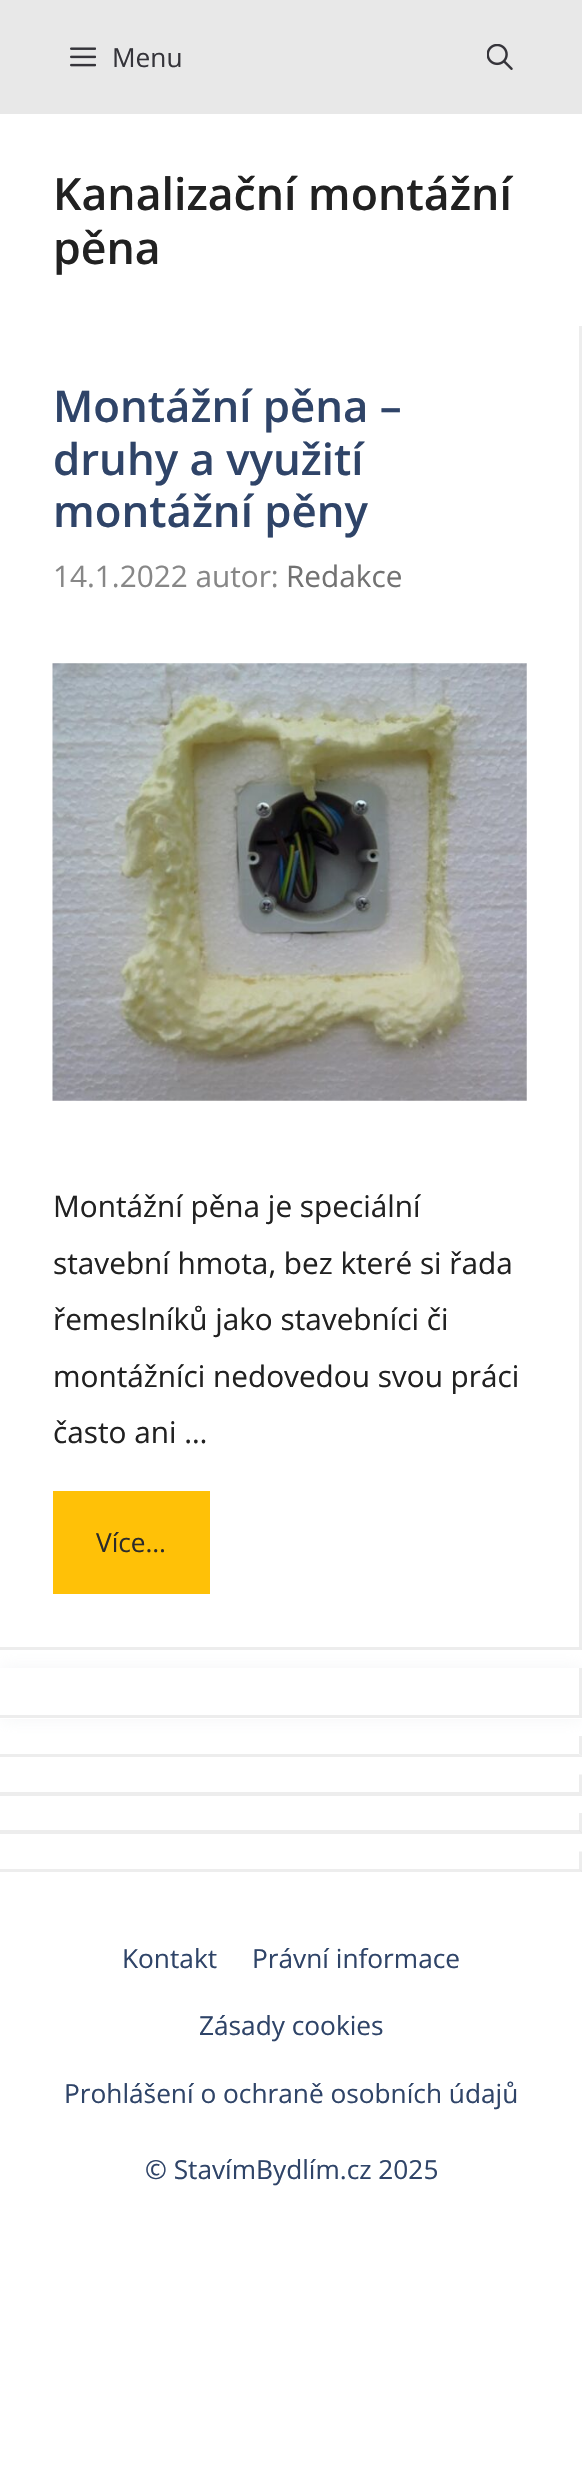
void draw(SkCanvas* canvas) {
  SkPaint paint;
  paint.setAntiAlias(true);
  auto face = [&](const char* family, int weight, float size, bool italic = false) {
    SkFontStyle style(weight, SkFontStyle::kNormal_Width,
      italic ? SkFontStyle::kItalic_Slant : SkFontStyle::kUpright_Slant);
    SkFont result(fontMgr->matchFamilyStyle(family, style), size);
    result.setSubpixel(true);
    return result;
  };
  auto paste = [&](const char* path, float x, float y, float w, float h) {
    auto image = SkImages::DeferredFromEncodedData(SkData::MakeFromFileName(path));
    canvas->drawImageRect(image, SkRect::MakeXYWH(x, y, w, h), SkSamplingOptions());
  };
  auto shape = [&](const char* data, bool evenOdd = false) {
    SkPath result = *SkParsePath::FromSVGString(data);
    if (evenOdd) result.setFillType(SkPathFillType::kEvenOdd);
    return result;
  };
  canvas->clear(0xffffffff);
  paint.setColor(0xffe8e8e8);
  canvas->drawRect(SkRect::MakeXYWH(0, 0, 582, 114), paint);
  paste("img/1.png", 70, 47, 26, 20);
  paste("img/2.png", 487, 44, 26, 26);
  paint.setColor(0xffededed);
  canvas->drawPath(shape("M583 326V1650L579 1647V326Z"), paint);
  paint.setColor(0x12000000);
  canvas->drawPath(shape("M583 1650H0V1647H579Z"), paint);
  paste("img/3.png", 52, 663, 475, 438);
  paint.setColor(0xffffc107);
  canvas->drawRect(SkRect::MakeXYWH(53, 1491, 157, 103), paint);
  paint.setColor(0x80e8eaed);
  paint.setMaskFilter(SkMaskFilter::MakeBlur(kNormal_SkBlurStyle, 9));
  canvas->drawRect(SkRect::MakeXYWH(0, 1668, 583, 51), paint);
  paint.setMaskFilter(nullptr);
  paint.setColor(0xffffffff);
  canvas->drawRect(SkRect::MakeXYWH(0, 1668, 582, 51), paint);
  paint.setColor(0xffededed);
  canvas->drawPath(shape("M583 1668V1718L579 1715V1668Z"), paint);
  paint.setColor(0x12000000);
  canvas->drawPath(shape("M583 1718H0V1715H579Z"), paint);
  paint.setColor(0xffededed);
  canvas->drawPath(shape("M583 1736V1757L579 1753.5V1736Z"), paint);
  canvas->drawPath(shape("M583 1757H0V1754H579Z"), paint);
  canvas->drawPath(shape("M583 1774.5V1795.5L579 1792V1774.5Z"), paint);
  paint.setColor(0x12000000);
  canvas->drawPath(shape("M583 1796H0V1792H579Z"), paint);
  paint.setColor(0xffededed);
  canvas->drawPath(shape("M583 1813V1834L579 1830.5V1813Z"), paint);
  paint.setColor(0x12000000);
  canvas->drawPath(shape("M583 1834H0V1830H579Z"), paint);
  paint.setColor(0xffededed);
  canvas->drawPath(shape("M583 1851.5V1872.5L579 1869V1851.5Z"), paint);
  paint.setColor(0x12000000);
  canvas->drawPath(shape("M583 1872H0V1869H579Z"), paint);
  auto f0 = face("Open Sans", 400, 26.25f);
  paint.setColor(0xff35343a);
  canvas->drawString("Menu", 112, 67, f0, paint);
  auto f1 = face("Open Sans", 600, 44.6f);
  paint.setColor(0xff212121);
  canvas->drawString("Kanalizační montážní", 53, 210, f1, paint);
  canvas->drawString("pěna", 53, 264, f1, paint);
  auto f2 = face("Open Sans", 600, 43.75f);
  paint.setColor(0xff2f4468);
  {
    const struct { const char* s; float x, y; } items[] = {
      {"Montážní pěna –", 53, 422},
      {"druhy a využití", 53, 475},
      {"montážní pěny", 53, 527},
    };
    for (auto [s, x, y] : items) {
      canvas->drawString(s, x, y, f2, paint);
    }
  }
  auto f3 = face("Open Sans", 400, 29.75f);
  paint.setColor(0xff878787);
  canvas->drawString("14.1.2022 autor:", 53, 587, f3, paint);
  paint.setColor(0xff727272);
  canvas->drawString("Redakce", 286, 587, f3, paint);
  paint.setColor(0xff212121);
  {
    const struct { const char* s; float x, y; } items[] = {
      {"Montážní pěna je speciální", 53, 1217},
      {"stavební hmota, bez které si řada", 53, 1274},
      {"řemeslníků jako stavebníci či", 53, 1330},
      {"montážníci nedovedou svou práci", 53, 1387},
      {"často ani …", 53, 1443},
    };
    for (auto [s, x, y] : items) {
      canvas->drawString(s, x, y, f3, paint);
    }
  }
  paint.setColor(0xff2b2b2b);
  canvas->drawString("Více…", 96, 1552, f0, paint);
  paint.setColor(0xff2f4468);
  {
    const struct { const char* s; float x, y; } items[] = {
      {"Kontakt", 122, 1968},
      {"Právní informace", 252, 1968},
      {"Zásady cookies", 199, 2035},
      {"Prohlášení o ochraně osobních údajů", 64, 2103},
      {"© StavímBydlím.cz 2025", 145, 2179},
    };
    for (auto [s, x, y] : items) {
      canvas->drawString(s, x, y, f0, paint);
    }
  }
}
